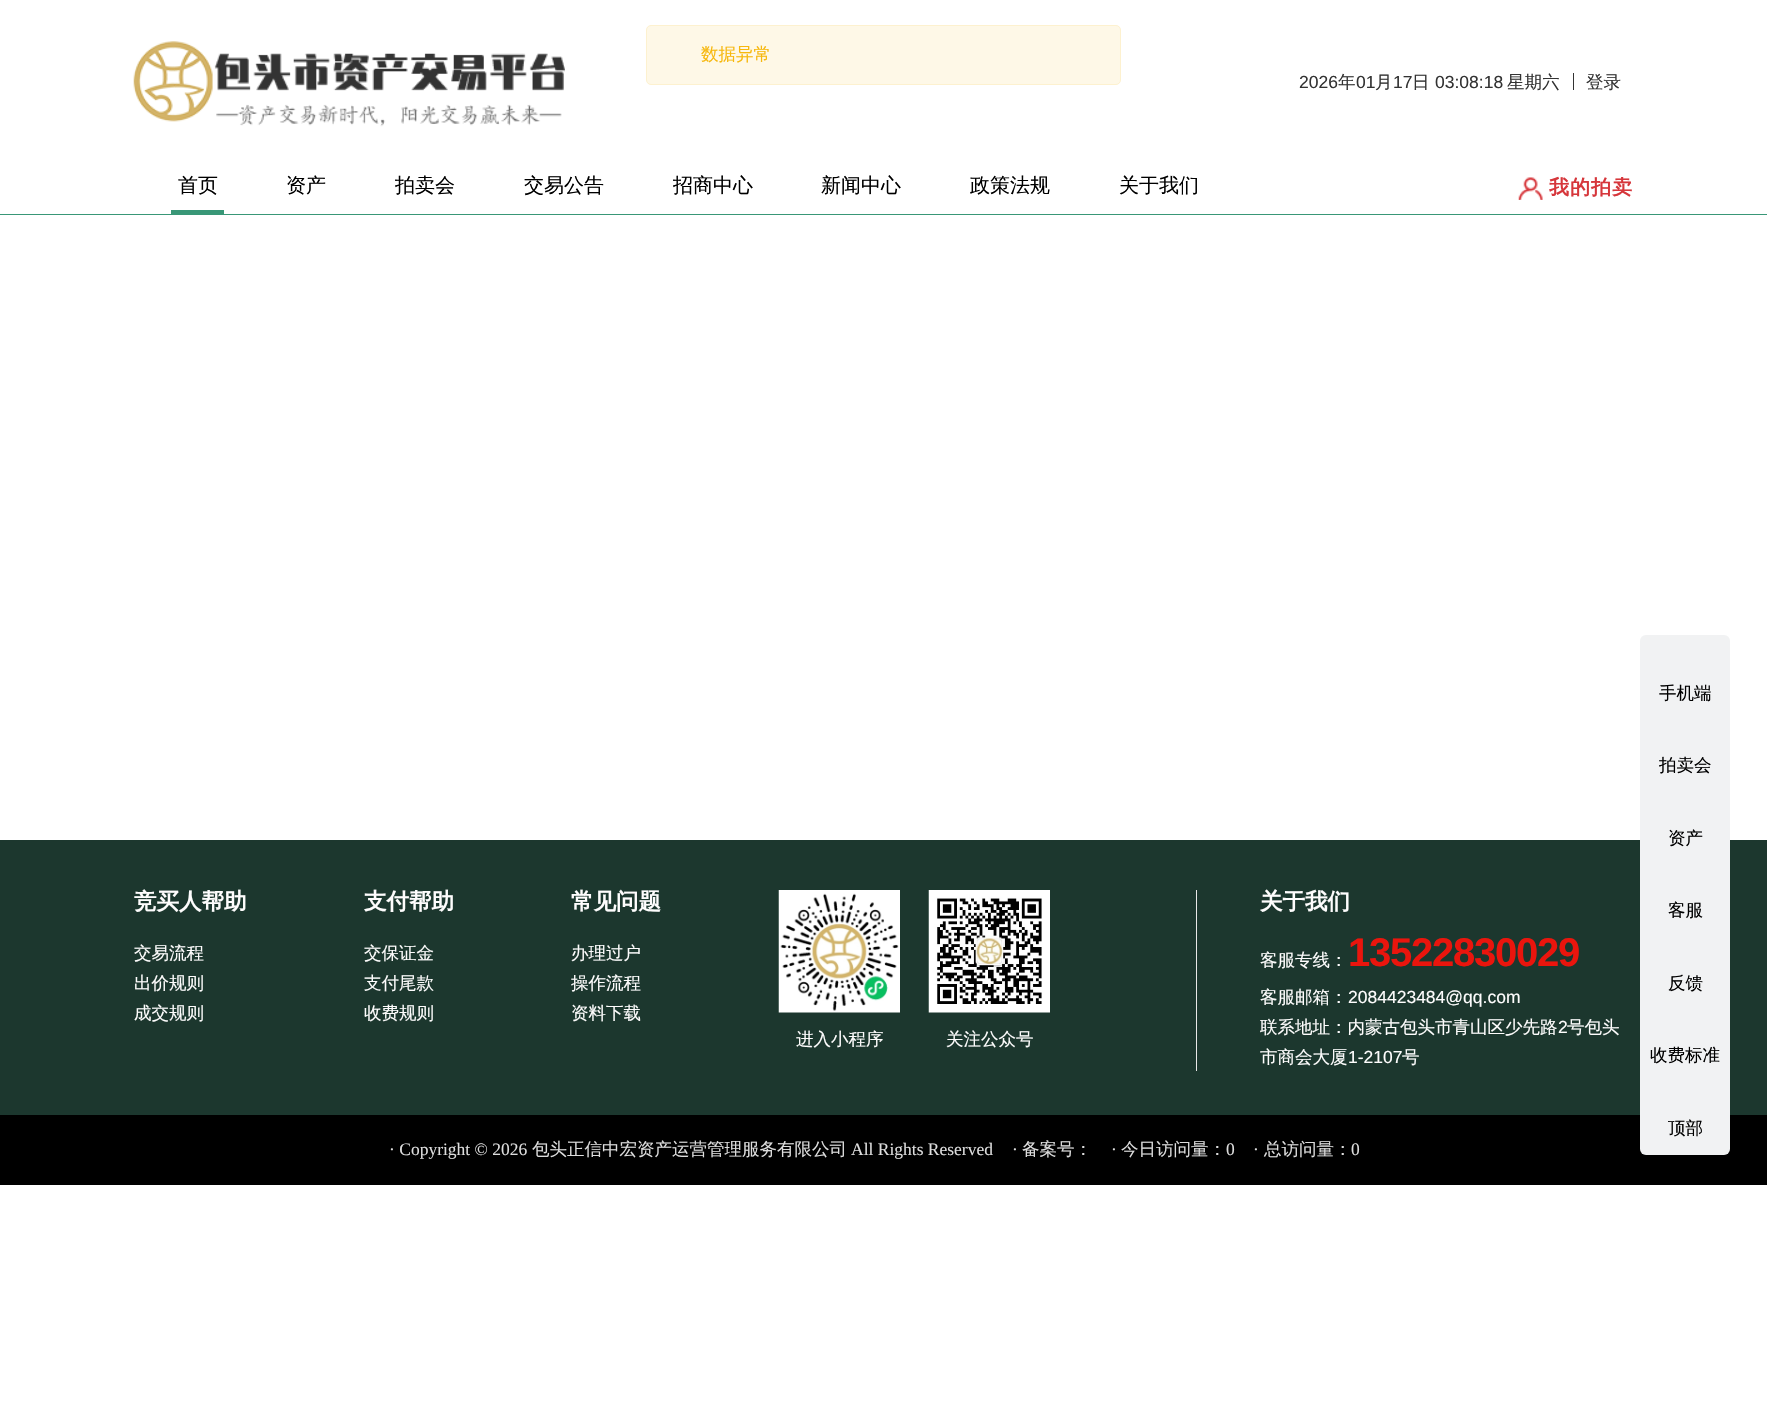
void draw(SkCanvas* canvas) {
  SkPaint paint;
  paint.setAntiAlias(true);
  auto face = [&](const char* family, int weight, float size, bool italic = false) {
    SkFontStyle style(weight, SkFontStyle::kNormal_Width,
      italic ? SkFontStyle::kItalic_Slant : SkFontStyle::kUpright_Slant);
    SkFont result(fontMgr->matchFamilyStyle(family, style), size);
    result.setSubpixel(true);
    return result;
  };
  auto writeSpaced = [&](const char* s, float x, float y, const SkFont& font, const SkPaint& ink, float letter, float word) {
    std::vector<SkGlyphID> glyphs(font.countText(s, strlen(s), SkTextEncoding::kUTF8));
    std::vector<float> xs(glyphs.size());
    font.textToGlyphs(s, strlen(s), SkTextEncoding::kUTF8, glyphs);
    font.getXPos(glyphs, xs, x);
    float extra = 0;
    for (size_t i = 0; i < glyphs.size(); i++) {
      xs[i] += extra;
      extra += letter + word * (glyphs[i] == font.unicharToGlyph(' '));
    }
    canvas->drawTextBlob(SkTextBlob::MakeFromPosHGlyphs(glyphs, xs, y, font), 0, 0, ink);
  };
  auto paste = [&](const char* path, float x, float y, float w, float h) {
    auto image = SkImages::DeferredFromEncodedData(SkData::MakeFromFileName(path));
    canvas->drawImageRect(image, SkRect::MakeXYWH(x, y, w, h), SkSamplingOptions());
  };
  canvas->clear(0xffffffff);
  paint.setColor(0xfffef8e7);
  canvas->drawRoundRect(SkRect::MakeXYWH(646.5f, 25.5f, 474, 59), 4.5f, 4.5f, paint);
  paint.setStroke(true);
  paint.setStrokeWidth(1);
  paint.setColor(0xfffdf1cf);
  canvas->drawRoundRect(SkRect::MakeXYWH(646.5f, 25.5f, 474, 59), 4.5f, 4.5f, paint);
  paint.setStroke(false);
  paint.setColor(0xff399777);
  canvas->drawRect(SkRect::MakeXYWH(0, 214, 1767, 1), paint);
  paste("img/1.png", 133, 41, 432, 86);
  paint.setColor(0xff333333);
  canvas->drawRect(SkRect::MakeXYWH(1573, 73, 1, 17), paint);
  paint.setColor(0xff399777);
  canvas->drawRect(SkRect::MakeXYWH(171, 210, 53, 4), paint);
  paste("img/2.png", 1518, 177, 25, 23);
  paint.setColor(0xff1c372e);
  canvas->drawRect(SkRect::MakeXYWH(0, 840, 1767, 275), paint);
  paste("img/3.png", 778, 890, 122, 123);
  paste("img/4.png", 928, 890, 122, 123);
  paint.setColor(0xffe8e8e8);
  canvas->drawRect(SkRect::MakeXYWH(1196, 890, 1, 181), paint);
  paint.setColor(0xff000000);
  canvas->drawRect(SkRect::MakeXYWH(0, 1115, 1767, 70), paint);
  paint.setColor(0xfff1f2f3);
  canvas->drawRoundRect(SkRect::MakeXYWH(1640, 635, 90, 520), 6, 6, paint);
  auto f0 = face("WenQuanYi Zen Hei", 500, 17.5f);
  paint.setColor(0xfff7b80e);
  canvas->drawString("数据异常", 701, 60, f0, paint);
  auto f1 = face("Liberation Sans", 400, 17.5f);
  paint.setColor(0xff333333);
  canvas->drawString("2026", 1299, 88, f1, paint);
  canvas->drawString("年", 1338, 88, f0, paint);
  canvas->drawString("01", 1356, 88, f1, paint);
  canvas->drawString("月", 1375, 88, f0, paint);
  canvas->drawString("17", 1393, 88, f1, paint);
  canvas->drawString("日", 1412, 88, f0, paint);
  canvas->drawString("03:08:18", 1435, 88, f1, paint);
  canvas->drawString("星期六", 1507, 88, f0, paint);
  canvas->drawString("登录", 1586, 88, f0, paint);
  auto f2 = face("WenQuanYi Zen Hei", 500, 20);
  paint.setColor(0xff000000);
  {
    const struct { const char* s; float x, y; } items[] = {
      {"首页", 178, 192},
      {"资产", 286, 192},
      {"拍卖会", 395, 192},
      {"交易公告", 524, 192},
      {"招商中心", 673, 192},
      {"新闻中心", 821, 192},
      {"政策法规", 970, 192},
      {"关于我们", 1119, 192},
    };
    for (auto [s, x, y] : items) {
      canvas->drawString(s, x, y, f2, paint);
    }
  }
  auto f3 = face("WenQuanYi Zen Hei", 700, 20);
  paint.setColor(0xffd6363b);
  writeSpaced("我的拍卖", 1549, 194, f3, paint, 1, 0);
  auto f4 = face("WenQuanYi Zen Hei", 700, 22.5f);
  paint.setColor(0xfffefdfd);
  canvas->drawString("竞买人帮助", 134, 909, f4, paint);
  {
    const struct { const char* s; float x, y; } items[] = {
      {"交易流程", 134, 959},
      {"出价规则", 134, 989},
      {"成交规则", 134, 1019},
    };
    for (auto [s, x, y] : items) {
      canvas->drawString(s, x, y, f0, paint);
    }
  }
  canvas->drawString("支付帮助", 364, 909, f4, paint);
  {
    const struct { const char* s; float x, y; } items[] = {
      {"交保证金", 364, 959},
      {"支付尾款", 364, 989},
      {"收费规则", 364, 1019},
    };
    for (auto [s, x, y] : items) {
      canvas->drawString(s, x, y, f0, paint);
    }
  }
  canvas->drawString("常见问题", 571, 909, f4, paint);
  {
    const struct { const char* s; float x, y; } items[] = {
      {"办理过户", 571, 959},
      {"操作流程", 571, 989},
      {"资料下载", 571, 1019},
      {"进入小程序", 796, 1045},
      {"关注公众号", 946, 1045},
    };
    for (auto [s, x, y] : items) {
      canvas->drawString(s, x, y, f0, paint);
    }
  }
  canvas->drawString("关于我们", 1260, 909, f4, paint);
  canvas->drawString("客服专线：", 1260, 966, f0, paint);
  auto f5 = face("Liberation Sans", 700, 40);
  paint.setColor(0xffea150d);
  writeSpaced("13522830029", 1348, 966, f5, paint, -1.25f, 0);
  paint.setColor(0xfffefdfd);
  canvas->drawString("客服邮箱：", 1260, 1003, f0, paint);
  canvas->drawString("2084423484@qq.com", 1348, 1003, f1, paint);
  canvas->drawString("联系地址：内蒙古包头市青山区少先路", 1260, 1033, f0, paint);
  canvas->drawString("2", 1558, 1033, f1, paint);
  canvas->drawString("号包头", 1567, 1033, f0, paint);
  canvas->drawString("市商会大厦", 1260, 1063, f0, paint);
  canvas->drawString("1-2107", 1348, 1063, f1, paint);
  canvas->drawString("号", 1402, 1063, f0, paint);
  auto f6 = face("Liberation Serif", 400, 17.5f);
  paint.setColor(0xffdddddd);
  canvas->drawString("· Copyright © 2026", 389, 1155, f6, paint);
  canvas->drawString("包头正信中宏资产运营管理服务有限公司", 532, 1155, f0, paint);
  canvas->drawString("All Rights Reserved", 851, 1155, f6, paint);
  canvas->drawString("·", 1012, 1155, f6, paint);
  canvas->drawString("备案号：", 1022, 1155, f0, paint);
  canvas->drawString("·", 1111, 1155, f6, paint);
  canvas->drawString("今日访问量：", 1121, 1155, f0, paint);
  canvas->drawString("0", 1226, 1155, f6, paint);
  canvas->drawString("·", 1253, 1155, f6, paint);
  canvas->drawString("总访问量：", 1264, 1155, f0, paint);
  canvas->drawString("0", 1351, 1155, f6, paint);
  paint.setColor(0xff000000);
  {
    const struct { const char* s; float x, y; } items[] = {
      {"手机端", 1659, 699},
      {"拍卖会", 1659, 771},
      {"资产", 1668, 844},
      {"客服", 1668, 916},
      {"反馈", 1668, 989},
      {"收费标准", 1650, 1061},
      {"顶部", 1668, 1134},
    };
    for (auto [s, x, y] : items) {
      canvas->drawString(s, x, y, f0, paint);
    }
  }
}
